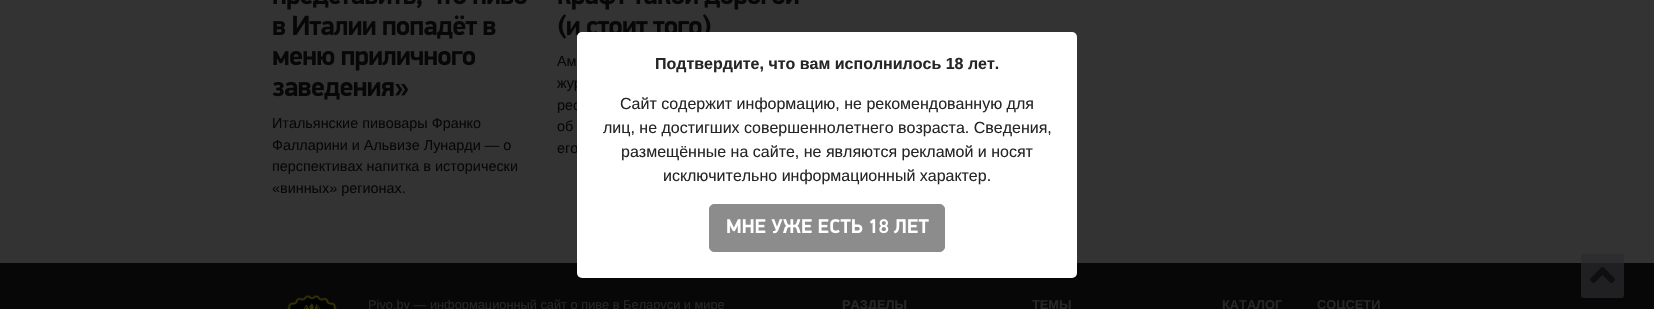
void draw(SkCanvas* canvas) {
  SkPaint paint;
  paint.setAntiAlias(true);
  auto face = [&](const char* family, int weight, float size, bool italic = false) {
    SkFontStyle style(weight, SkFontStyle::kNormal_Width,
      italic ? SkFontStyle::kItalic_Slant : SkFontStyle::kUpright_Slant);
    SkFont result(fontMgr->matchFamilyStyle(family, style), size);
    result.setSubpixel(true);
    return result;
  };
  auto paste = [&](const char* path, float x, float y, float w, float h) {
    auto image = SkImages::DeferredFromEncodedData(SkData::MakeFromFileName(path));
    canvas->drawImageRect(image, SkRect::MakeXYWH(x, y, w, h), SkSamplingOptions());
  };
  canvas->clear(0xff333333);
  paste("img/1.png", 273, 0, 254, 10);
  paste("img/2.png", 273, 15, 223, 24);
  paste("img/3.png", 273, 50, 202, 21);
  paste("img/4.png", 272, 81, 137, 19);
  paste("img/5.png", 558, 0, 241, 10);
  paste("img/6.png", 558, 14, 153, 25);
  paint.setColor(0xff070708);
  canvas->drawRect(SkRect::MakeXYWH(0, 263, 1654, 46), paint);
  paint.setColor(0xb3292a2c);
  canvas->drawRoundRect(SkRect::MakeXYWH(1581, 254, 43, 44), 3, 3, paint);
  paste("img/8.png", 1590, 267, 25, 16);
  paste("img/9.png", 287, 295, 50, 14);
  auto f0 = face("Liberation Sans", 400, 14.4f);
  paint.setColor(0xff070708);
  {
    const struct { const char* s; float x, y; } items[] = {
      {"Итальянские пивовары Франко", 272, 128},
      {"Фалларини и Альвизе Лунарди — о", 272, 150},
      {"перспективах напитка в исторически", 272, 171},
      {"«винных» регионах.", 272, 193},
      {"Ам", 557, 66},
      {"жур", 557, 88},
      {"рес", 557, 110},
      {"об", 557, 131},
      {"его", 557, 153},
    };
    for (auto [s, x, y] : items) {
      canvas->drawString(s, x, y, f0, paint);
    }
  }
  paint.setColor(0xffffffff);
  canvas->drawRoundRect(SkRect::MakeXYWH(577, 32, 500, 246), 5, 5, paint);
  auto f1 = face("Liberation Sans", 700, 16);
  paint.setColor(0xff262626);
  canvas->drawString("Подтвердите, что вам исполнилось 18 лет.", 655, 69, f1, paint);
  auto f2 = face("Liberation Sans", 400, 16);
  {
    const struct { const char* s; float x, y; } items[] = {
      {"Сайт содержит информацию, не рекомендованную для", 620, 109},
      {"лиц, не достигших совершеннолетнего возраста. Сведения,", 603, 133},
      {"размещённые на сайте, не являются рекламой и носят", 621, 157},
      {"исключительно информационный характер.", 663, 181},
    };
    for (auto [s, x, y] : items) {
      canvas->drawString(s, x, y, f2, paint);
    }
  }
  paint.setColor(0xff8c8c8c);
  canvas->drawRoundRect(SkRect::MakeXYWH(709.5f, 204.5f, 235, 47), 4.5f, 4.5f, paint);
  paint.setStroke(true);
  paint.setStrokeWidth(1);
  canvas->drawRoundRect(SkRect::MakeXYWH(709.5f, 204.5f, 235, 47), 4.5f, 4.5f, paint);
  paste("img/7.png", 727, 219, 202, 15);
  auto f3 = face("Liberation Sans", 400, 12.8f);
  paint.setStroke(false);
  paint.setColor(0xff262626);
  canvas->drawString("Pivo.by — информационный сайт о пиве в Беларуси и мире", 368, 309, f3, paint);
  auto f4 = face("Liberation Sans", 700, 12.8f);
  {
    const struct { const char* s; float x, y; } items[] = {
      {"РАЗДЕЛЫ", 842, 309},
      {"ТЕМЫ", 1032, 309},
      {"КАТАЛОГ", 1222, 309},
      {"СОЦСЕТИ", 1317, 309},
    };
    for (auto [s, x, y] : items) {
      canvas->drawString(s, x, y, f4, paint);
    }
  }
}
